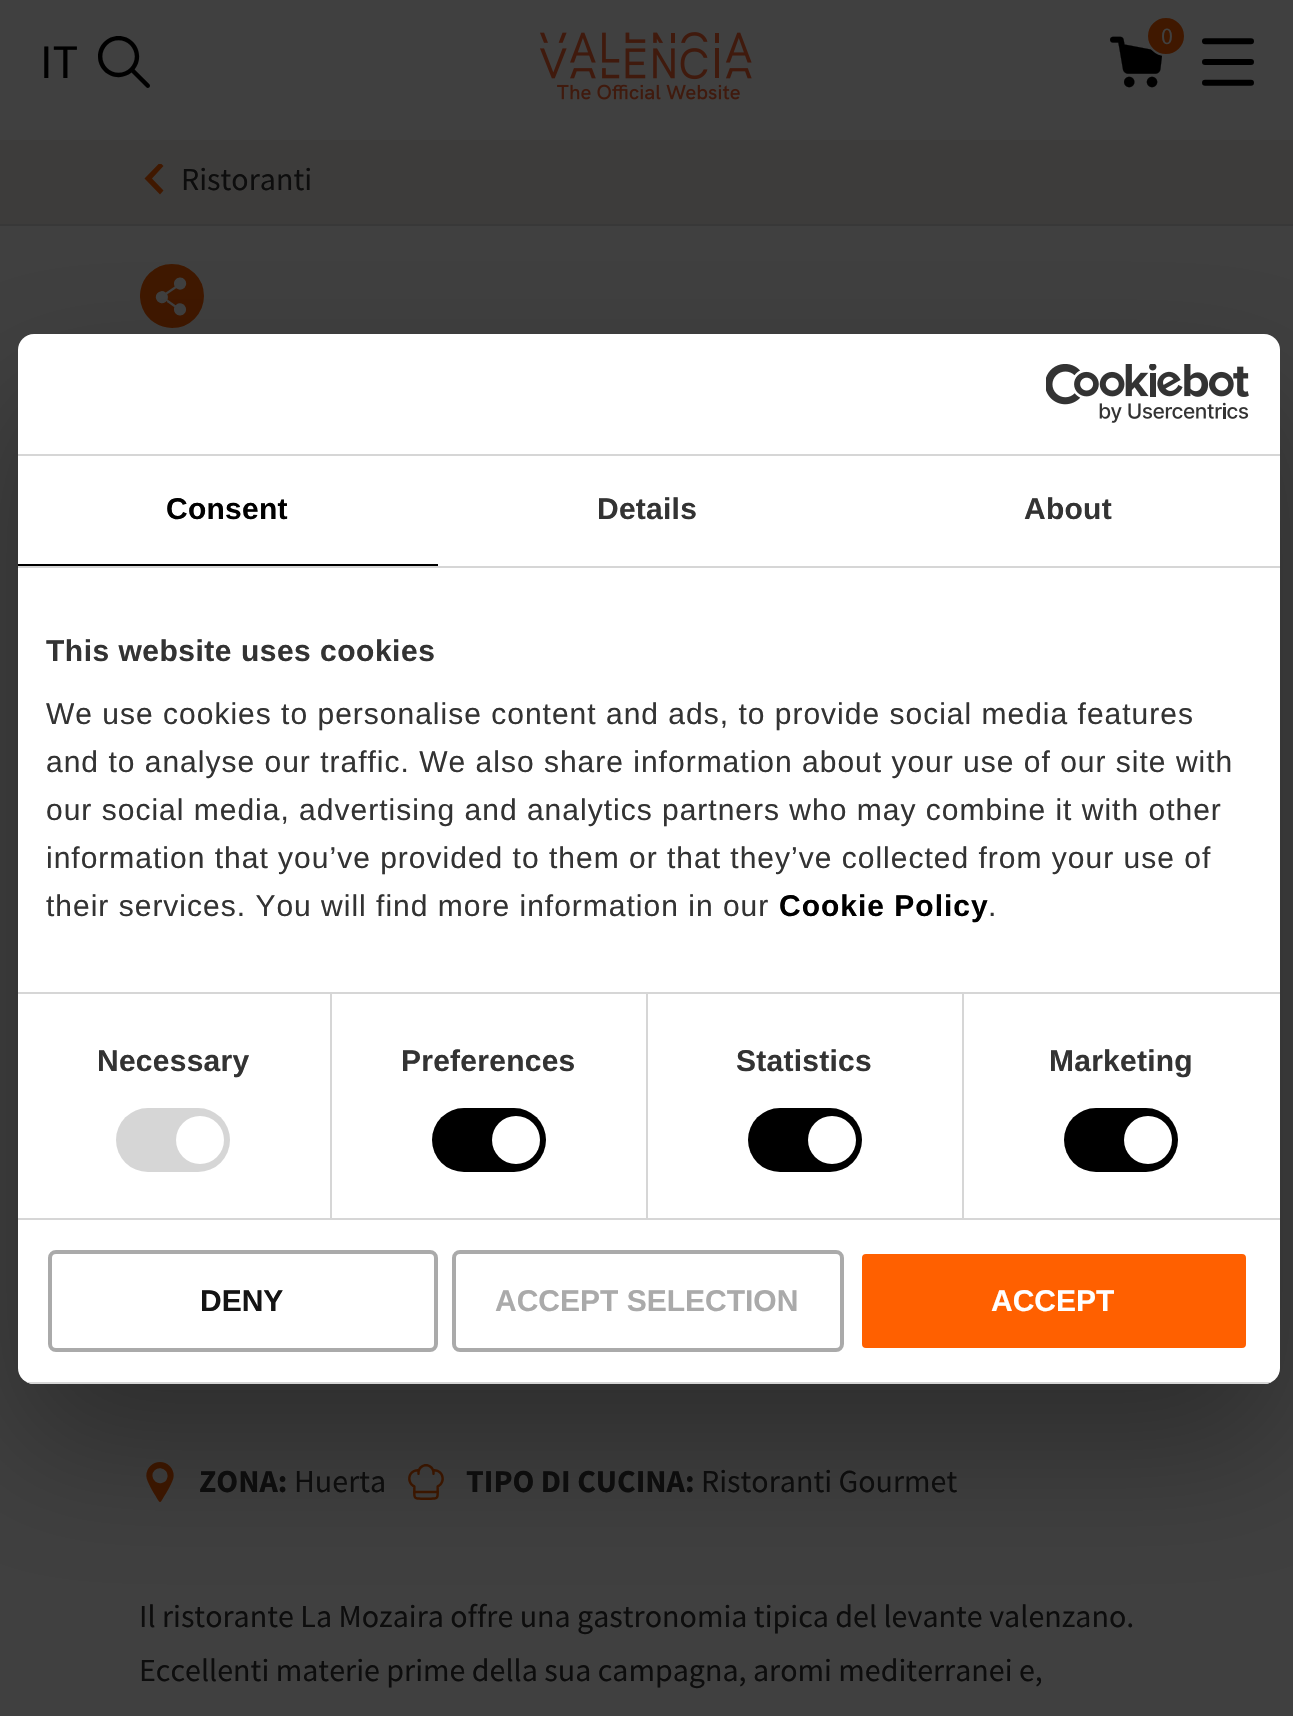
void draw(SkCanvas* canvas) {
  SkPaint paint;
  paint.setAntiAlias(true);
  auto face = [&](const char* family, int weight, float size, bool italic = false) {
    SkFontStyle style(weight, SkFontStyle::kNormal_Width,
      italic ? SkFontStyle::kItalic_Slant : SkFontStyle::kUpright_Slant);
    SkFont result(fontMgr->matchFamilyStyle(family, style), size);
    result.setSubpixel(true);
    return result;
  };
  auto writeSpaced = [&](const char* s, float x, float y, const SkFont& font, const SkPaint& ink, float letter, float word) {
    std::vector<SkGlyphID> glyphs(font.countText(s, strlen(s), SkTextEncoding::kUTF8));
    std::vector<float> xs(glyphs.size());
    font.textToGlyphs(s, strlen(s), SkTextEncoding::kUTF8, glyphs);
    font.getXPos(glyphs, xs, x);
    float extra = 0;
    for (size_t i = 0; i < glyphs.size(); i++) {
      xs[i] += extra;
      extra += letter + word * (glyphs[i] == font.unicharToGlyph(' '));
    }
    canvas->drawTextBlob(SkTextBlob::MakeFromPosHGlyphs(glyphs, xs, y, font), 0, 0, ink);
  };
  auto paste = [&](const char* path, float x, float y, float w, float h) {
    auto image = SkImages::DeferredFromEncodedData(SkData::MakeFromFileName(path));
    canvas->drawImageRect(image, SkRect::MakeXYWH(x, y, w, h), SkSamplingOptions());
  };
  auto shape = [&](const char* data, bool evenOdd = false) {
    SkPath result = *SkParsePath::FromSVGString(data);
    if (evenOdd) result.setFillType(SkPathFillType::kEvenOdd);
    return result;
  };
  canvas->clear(0xff404040);
  paste("img/1.png", 98, 36, 52, 52);
  paste("img/2.png", 1110, 36, 52, 52);
  paint.setColor(0xff401800);
  canvas->drawCircle(1166, 36, 19, paint);
  paint.setStroke(true);
  paint.setStrokeWidth(2);
  paint.setColor(0xff404040);
  canvas->drawCircle(1166, 36, 19, paint);
  paste("img/3.png", 1202, 38, 52, 48);
  paste("img/4.png", 540, 32, 212, 68);
  paint.setStroke(false);
  paint.setColor(0xff3d3c3b);
  canvas->drawRect(SkRect::MakeXYWH(0, 140, 1293, 84), paint);
  paint.setColor(0xff383838);
  canvas->drawRect(SkRect::MakeXYWH(0, 224, 1293, 2), paint);
  canvas->save();
  canvas->clipRect(SkRect::MakeXYWH(140, 164, 32, 32));
  paint.setColor(0xff401800);
  canvas->drawPath(shape("M163.5 166L152 178.5L163.5 190.5L160 194.5L144.5 178.5L160 162.5Z"), paint);
  canvas->restore();
  paste("img/5.png", 140, 264, 64, 64);
  paste("img/6.png", 146, 1462, 28, 40);
  paste("img/7.png", 408, 1464, 36, 36);
  paint.setColor(0x4d000000);
  paint.setMaskFilter(SkMaskFilter::MakeBlur(kNormal_SkBlurStyle, 68));
  canvas->drawRoundRect(SkRect::MakeXYWH(18, 398, 1262, 1050), 16, 16, paint);
  paint.setMaskFilter(nullptr);
  paint.setColor(0xffffffff);
  canvas->drawRoundRect(SkRect::MakeXYWH(18, 334, 1262, 1050), 16, 16, paint);
  paint.setColor(0xffd6d6d6);
  canvas->drawRect(SkRect::MakeXYWH(18, 454, 1262, 2), paint);
  paste("img/8.png", 1046, 364, 203, 59);
  {
    const struct { float x, y, w, h; SkColor color; } items[] = {
      {18, 566, 1262, 2, 0xffd6d6d6},
      {18, 564, 420, 2, 0xff000000},
      {18, 992, 1262, 2, 0xffd6d6d6},
      {18, 1218, 1262, 2, 0xffd6d6d6},
      {330, 994, 2, 224, 0xffd6d6d6},
    };
    for (auto [x, y, w, h, color] : items) {
      paint.setColor(color);
      canvas->drawRect(SkRect::MakeXYWH(x, y, w, h), paint);
    }
  }
  canvas->drawRoundRect(SkRect::MakeXYWH(116, 1108, 114, 64), 32, 32, paint);
  paint.setColor(0xffffffff);
  canvas->drawCircle(200, 1140, 24, paint);
  paint.setColor(0xffd6d6d6);
  canvas->drawRect(SkRect::MakeXYWH(646, 994, 2, 224), paint);
  paint.setColor(0xff000000);
  canvas->drawRoundRect(SkRect::MakeXYWH(432, 1108, 114, 64), 32, 32, paint);
  paint.setColor(0xffffffff);
  canvas->drawCircle(516, 1140, 24, paint);
  paint.setColor(0xffd6d6d6);
  canvas->drawRect(SkRect::MakeXYWH(962, 994, 2, 224), paint);
  paint.setColor(0xff000000);
  canvas->drawRoundRect(SkRect::MakeXYWH(748, 1108, 114, 64), 32, 32, paint);
  paint.setColor(0xffffffff);
  canvas->drawCircle(832, 1140, 24, paint);
  paint.setColor(0xff000000);
  canvas->drawRoundRect(SkRect::MakeXYWH(1064, 1108, 114, 64), 32, 32, paint);
  paint.setColor(0xffffffff);
  canvas->drawCircle(1148, 1140, 24, paint);
  canvas->save();
  canvas->clipPath(shape("M34 334H1264C1273 334 1280 341 1280 350V1368C1280 1377 1273 1384 1264 1384H34C25 1384 18 1377 18 1368V350C18 341 25 334 34 334Z"), true);
  paint.setColor(0xffd6d6d6);
  canvas->drawRect(SkRect::MakeXYWH(18, 1382, 1262, 2), paint);
  canvas->restore();
  paint.setStroke(true);
  paint.setStrokeWidth(4);
  paint.setColor(0xffaaaaaa);
  canvas->drawRoundRect(SkRect::MakeXYWH(50, 1252, 386, 98), 6, 6, paint);
  canvas->drawRoundRect(SkRect::MakeXYWH(454, 1252, 388, 98), 6, 6, paint);
  paint.setStroke(false);
  paint.setColor(0xffff6000);
  canvas->drawRoundRect(SkRect::MakeXYWH(860, 1252, 388, 98), 6, 6, paint);
  paint.setStroke(true);
  paint.setColor(0xffffffff);
  canvas->drawRoundRect(SkRect::MakeXYWH(860, 1252, 388, 98), 6, 6, paint);
  auto f0 = face("Source Sans Pro", 400, 48);
  paint.setStroke(false);
  paint.setColor(0xff000000);
  canvas->drawString("IT", 40, 78, f0, paint);
  auto f1 = face("Source Sans Pro", 400, 24);
  paint.setColor(0xff404040);
  canvas->drawString("0", 1161, 44, f1, paint);
  auto f2 = face("Source Sans Pro", 400, 32);
  paint.setColor(0xff0d0d0d);
  canvas->drawString("Ristoranti", 181, 190, f2, paint);
  auto f3 = face("Source Sans Pro", 700, 32);
  canvas->drawString("ZONA:", 199, 1492, f3, paint);
  canvas->drawString("Huerta", 294, 1492, f2, paint);
  canvas->drawString("TIPO DI CUCINA:", 466, 1492, f3, paint);
  {
    const struct { const char* s; float x, y; } items[] = {
      {"Ristoranti Gourmet", 701, 1492},
      {"Il ristorante La Mozaira offre una gastronomia tipica del levante valenzano.", 139, 1627},
      {"Eccellenti materie prime della sua campagna, aromi mediterranei e,", 139, 1681},
    };
    for (auto [s, x, y] : items) {
      canvas->drawString(s, x, y, f2, paint);
    }
  }
  auto f4 = face("Liberation Sans", 700, 30);
  paint.setColor(0xff000000);
  writeSpaced("Consent", 166, 519, f4, paint, 0.25f, 0);
  paint.setColor(0xff333333);
  writeSpaced("Details", 597, 519, f4, paint, 0.25f, 0);
  writeSpaced("About", 1024, 519, f4, paint, 0.25f, 0);
  writeSpaced("This website uses cookies", 46, 661, f4, paint, 0.5f, 0);
  auto f5 = face("Liberation Sans", 400, 30);
  {
    const struct { const char* s; float x, y; } items[] = {
      {"We use cookies to personalise content and ads, to provide social media features", 46, 724},
      {"and to analyse our traffic. We also share information about your use of our site with", 46, 772},
      {"our social media, advertising and analytics partners who may combine it with other", 46, 820},
      {"information that you’ve provided to them or that they’ve collected from your use of", 46, 868},
      {"their services. You will find more information in our", 46, 916},
    };
    for (auto [s, x, y] : items) {
      writeSpaced(s, x, y, f5, paint, 1, 0);
    }
  }
  paint.setColor(0xff000000);
  writeSpaced("Cookie Policy", 779, 916, f4, paint, 1, 0);
  paint.setColor(0xff333333);
  writeSpaced(".", 988, 916, f5, paint, 1, 0);
  {
    const struct { const char* s; float x, y; } items[] = {
      {"Necessary", 97, 1071},
      {"Preferences", 401, 1071},
      {"Statistics", 736, 1071},
      {"Marketing", 1049, 1071},
    };
    for (auto [s, x, y] : items) {
      writeSpaced(s, x, y, f4, paint, 0.25f, 0);
    }
  }
  paint.setColor(0xff141414);
  canvas->drawString("DENY", 200, 1311, f4, paint);
  paint.setColor(0xffaaaaaa);
  canvas->drawString("ACCEPT SELECTION", 495, 1311, f4, paint);
  paint.setColor(0xffffffff);
  canvas->drawString("ACCEPT", 991, 1311, f4, paint);
}
